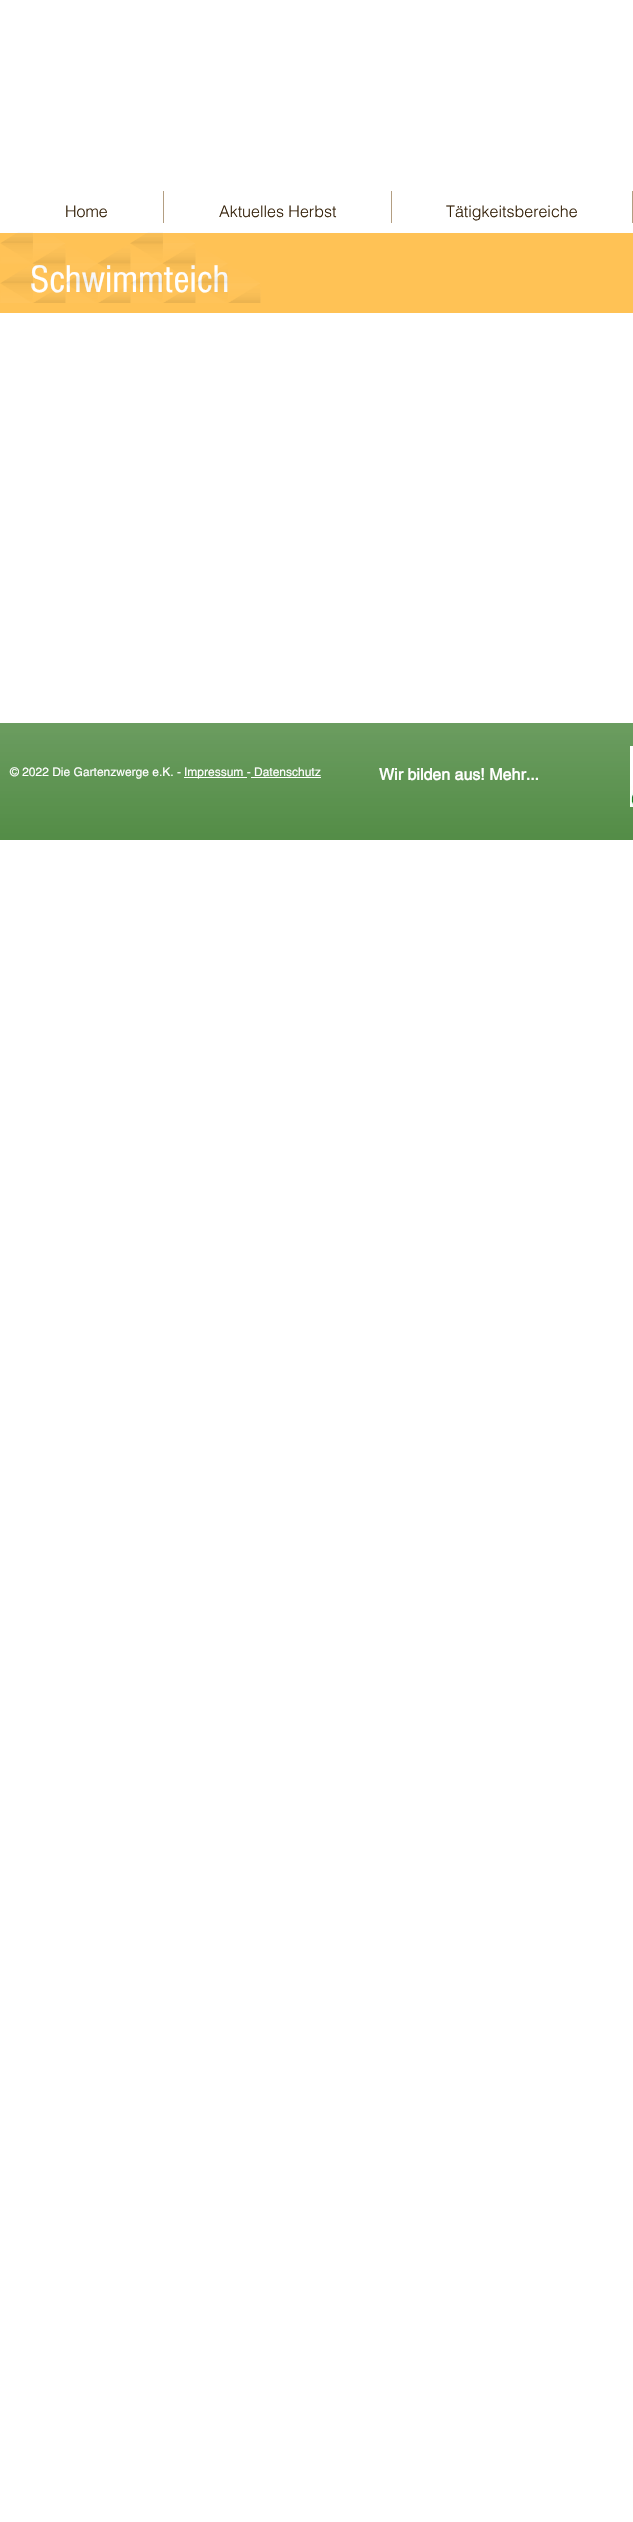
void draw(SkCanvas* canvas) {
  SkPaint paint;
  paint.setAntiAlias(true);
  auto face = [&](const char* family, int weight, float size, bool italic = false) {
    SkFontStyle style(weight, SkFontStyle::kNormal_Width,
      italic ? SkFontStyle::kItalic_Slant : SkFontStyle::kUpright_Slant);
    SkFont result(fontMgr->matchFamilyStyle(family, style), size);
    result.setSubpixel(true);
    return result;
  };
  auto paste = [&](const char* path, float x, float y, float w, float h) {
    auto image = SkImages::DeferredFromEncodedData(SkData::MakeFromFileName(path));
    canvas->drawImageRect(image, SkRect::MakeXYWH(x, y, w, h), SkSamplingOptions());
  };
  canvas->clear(0xffffffff);
  {
    const struct { float x, y, w, h; SkColor color; } items[] = {
      {163, 191, 1, 40, 0xffb39e82},
      {391, 191, 1, 40, 0xffb39e82},
      {632, 191, 1, 40, 0xffb39e82},
      {163, 223, 470, 8, 0xffffffff},
      {0, 233, 633, 80, 0xffffc255},
      {0, 723, 633, 117, 0xff377a28},
    };
    for (auto [x, y, w, h, color] : items) {
      paint.setColor(color);
      canvas->drawRect(SkRect::MakeXYWH(x, y, w, h), paint);
    }
  }
  paste("img/2.png", 0, 723, 633, 117);
  paint.setColor(0xffffffff);
  canvas->drawRect(SkRect::MakeXYWH(184, 777, 63, 1), paint);
  canvas->drawRect(SkRect::MakeXYWH(251, 777, 70, 1), paint);
  paste("img/3.png", 630, 746, 3, 61);
  auto f0 = face("helvetica", 300, 16);
  paint.setColor(0xff342109);
  {
    const struct { const char* s; float x, y; } items[] = {
      {"Home", 65, 217},
      {"Aktuelles Herbst", 219, 217},
      {"Tätigkeitsbereiche", 446, 217},
    };
    for (auto [s, x, y] : items) {
      canvas->drawString(s, x, y, f0, paint);
    }
  }
  auto f1 = face("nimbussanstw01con", 400, 40);
  paint.setColor(0xffffffff);
  canvas->drawString("Schwimmteich", 30, 292, f1, paint);
  paste("img/1.png", 0, 232, 261, 71);
  auto f2 = face("helvetica", 400, 12);
  canvas->drawString("© 2022 Die Gartenzwerge e.K. -", 10, 776, f2, paint);
  canvas->drawString("Impressum - Datenschutz", 184, 776, f2, paint);
  auto f3 = face("helvetica", 700, 16);
  canvas->drawString("Wir bilden aus! Mehr...", 379, 780, f3, paint);
}
